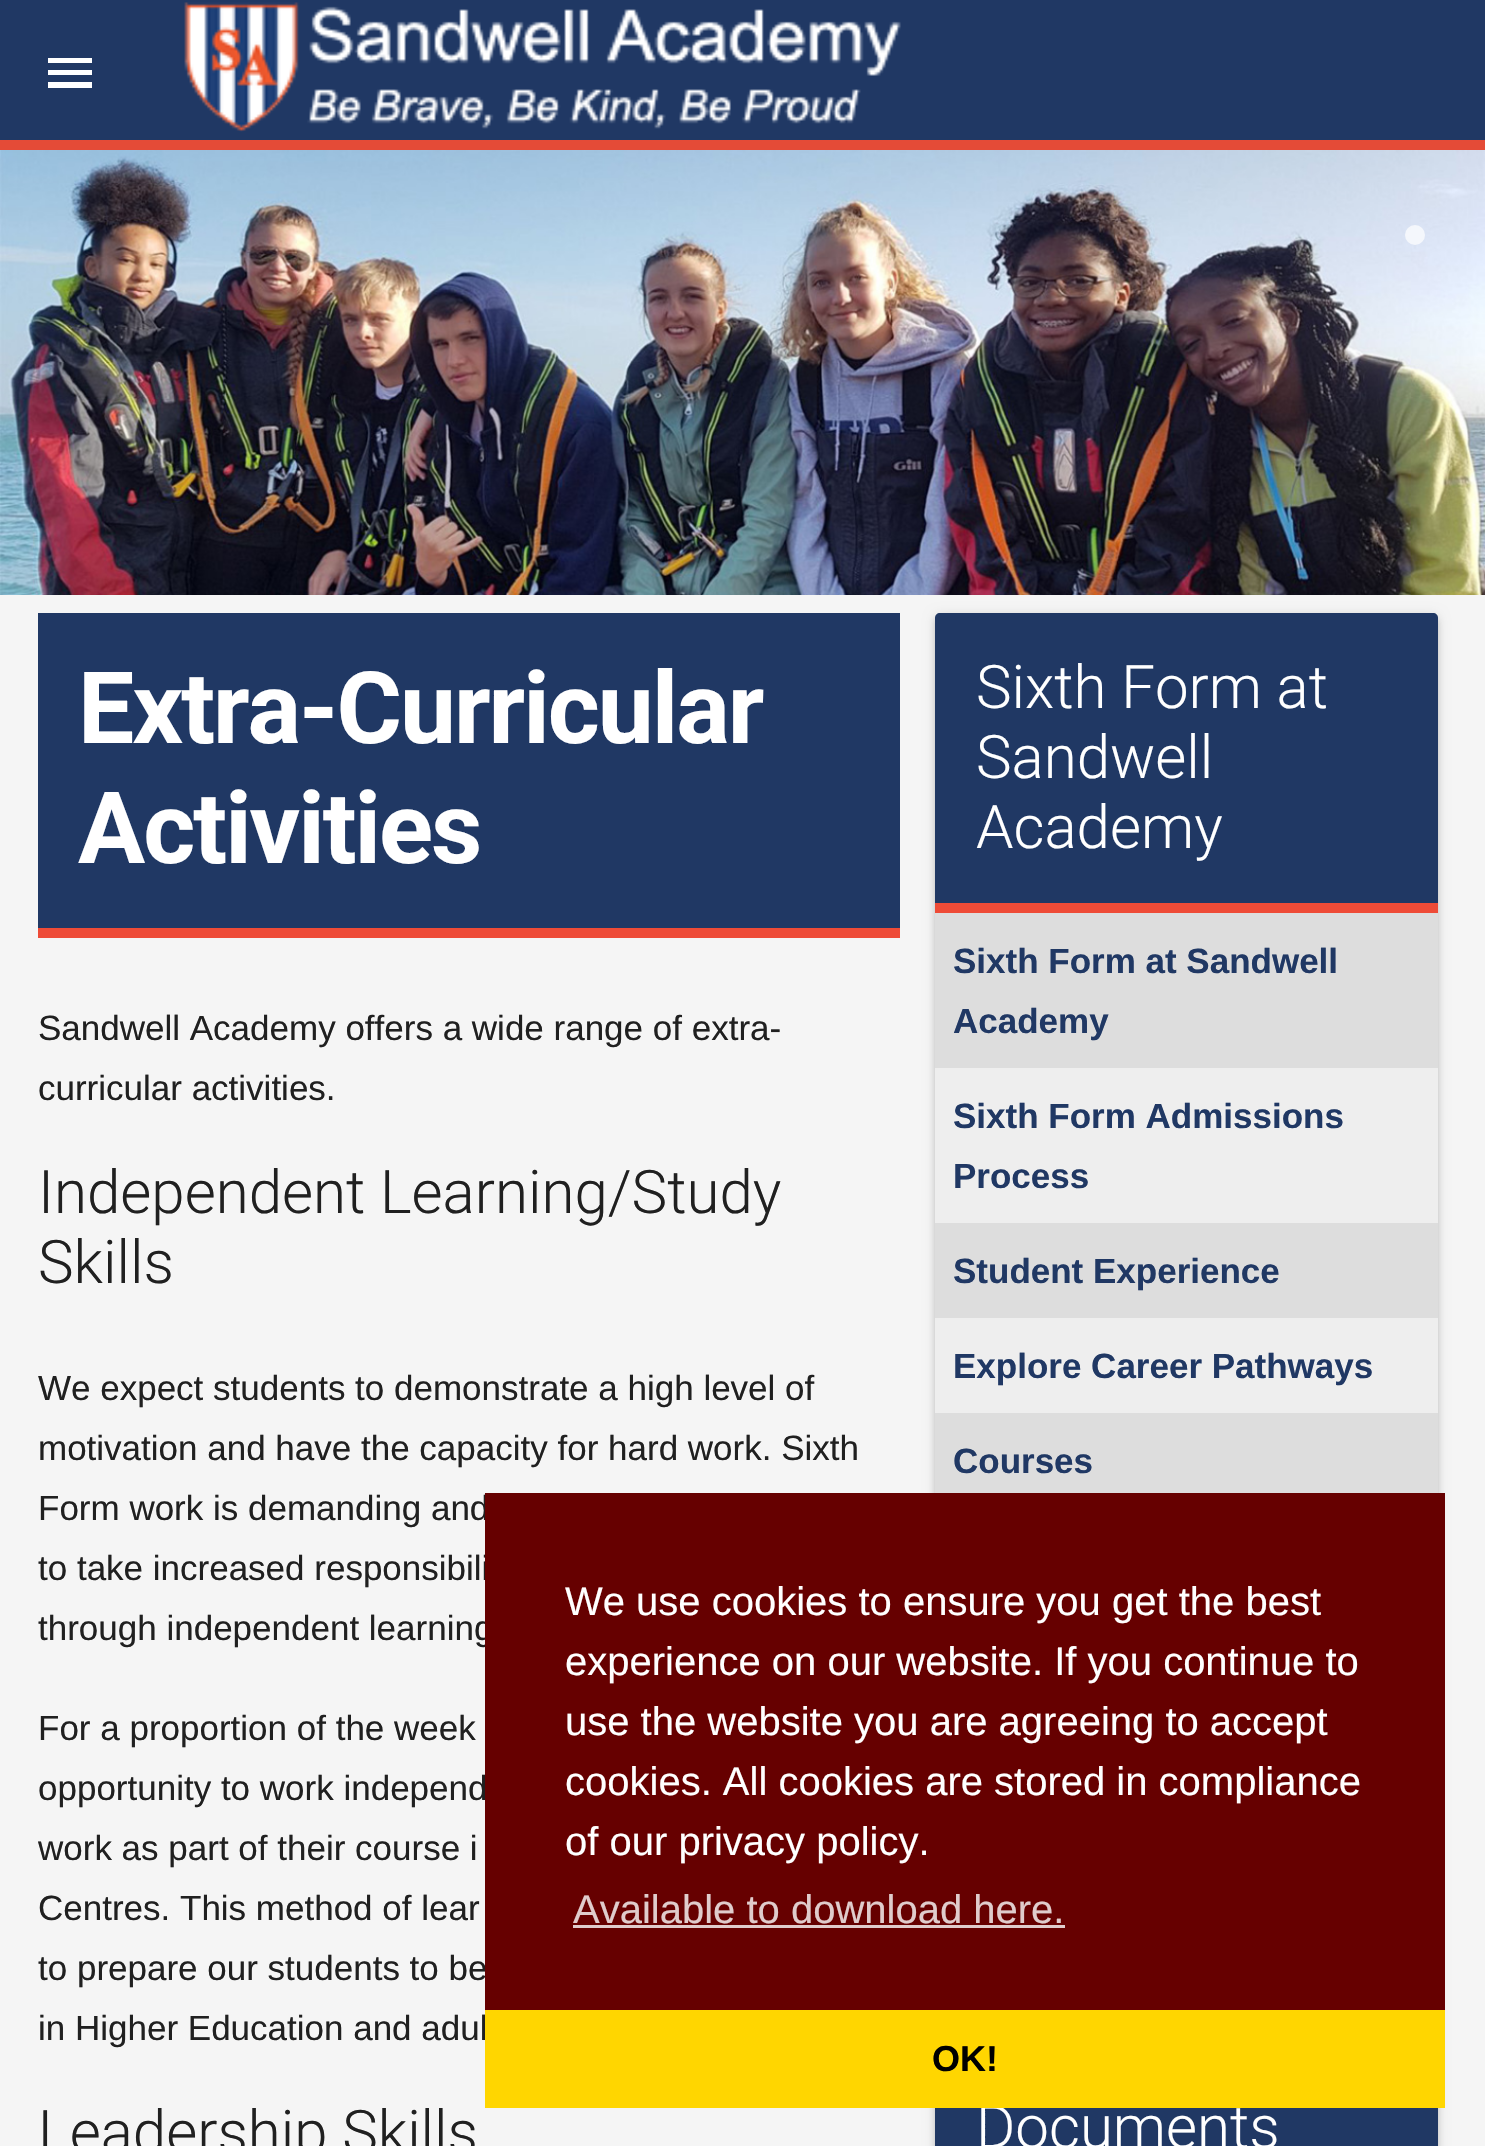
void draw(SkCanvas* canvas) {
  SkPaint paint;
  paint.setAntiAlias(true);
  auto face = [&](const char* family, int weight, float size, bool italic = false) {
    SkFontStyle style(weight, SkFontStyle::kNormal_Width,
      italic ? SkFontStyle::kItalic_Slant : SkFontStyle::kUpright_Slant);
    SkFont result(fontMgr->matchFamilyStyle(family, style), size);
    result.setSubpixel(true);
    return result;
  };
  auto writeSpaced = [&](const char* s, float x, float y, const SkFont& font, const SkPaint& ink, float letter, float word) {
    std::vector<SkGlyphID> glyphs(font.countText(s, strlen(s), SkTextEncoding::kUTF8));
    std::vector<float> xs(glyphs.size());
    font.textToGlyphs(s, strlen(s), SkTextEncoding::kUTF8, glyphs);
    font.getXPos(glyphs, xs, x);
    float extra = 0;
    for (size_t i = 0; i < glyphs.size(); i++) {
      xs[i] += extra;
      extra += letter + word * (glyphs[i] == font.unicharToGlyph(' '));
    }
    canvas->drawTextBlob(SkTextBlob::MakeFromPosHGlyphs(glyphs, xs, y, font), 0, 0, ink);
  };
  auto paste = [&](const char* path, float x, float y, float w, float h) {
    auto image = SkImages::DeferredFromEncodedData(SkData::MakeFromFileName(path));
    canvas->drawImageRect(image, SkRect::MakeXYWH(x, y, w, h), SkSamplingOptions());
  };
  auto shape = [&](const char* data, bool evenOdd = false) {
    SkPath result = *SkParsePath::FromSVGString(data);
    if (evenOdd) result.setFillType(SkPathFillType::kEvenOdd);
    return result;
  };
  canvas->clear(0xfff5f5f5);
  paste("img/2.png", 0, 150, 1485, 445);
  paint.setColor(0xb3ffffff);
  canvas->drawCircle(1415, 235, 10, paint);
  paint.setColor(0xff203864);
  canvas->drawRect(SkRect::MakeXYWH(0, 0, 1485, 140), paint);
  paint.setColor(0xffe44b37);
  canvas->drawRect(SkRect::MakeXYWH(0, 140, 1485, 10), paint);
  paint.setColor(0xffffffff);
  canvas->drawPath(shape("M48 58H92V63H48ZM48 75V70H92V75ZM48 88V82H92V88Z"), paint);
  paste("img/1.png", 184, 2, 717, 130);
  paint.setColor(0xff203864);
  canvas->drawRect(SkRect::MakeXYWH(38, 613, 862, 315), paint);
  paint.setColor(0xffee4b37);
  canvas->drawRect(SkRect::MakeXYWH(38, 928, 862, 10), paint);
  paint.setColor(0x1f000000);
  paint.setMaskFilter(SkMaskFilter::MakeBlur(kNormal_SkBlurStyle, 6));
  canvas->drawRoundRect(SkRect::MakeXYWH(935, 615, 503, 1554), 5, 5, paint);
  paint.setMaskFilter(nullptr);
  paint.setColor(0x24000000);
  paint.setMaskFilter(SkMaskFilter::MakeBlur(kNormal_SkBlurStyle, 2.5f));
  canvas->drawRoundRect(SkRect::MakeXYWH(935, 618, 503, 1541), 5, 5, paint);
  paint.setMaskFilter(nullptr);
  paint.setColor(0xff203864);
  canvas->drawPath(shape("M940 613H1433C1436 613 1438 615 1438 618V913H935V618C935 615 937 613 940 613Z"), paint);
  {
    const struct { float x, y, w, h; SkColor color; } items[] = {
      {935, 903, 503, 10, 0xffee4b37},
      {935, 913, 503, 580, 0xffdddddd},
      {935, 1068, 503, 155, 0xffeeeeee},
      {935, 1318, 503, 95, 0xffeeeeee},
      {935, 2108, 503, 38, 0xff203864},
    };
    for (auto [x, y, w, h, color] : items) {
      paint.setColor(color);
      canvas->drawRect(SkRect::MakeXYWH(x, y, w, h), paint);
    }
  }
  auto f0 = face("Roboto", 700, 100);
  paint.setColor(0xffffffff);
  writeSpaced("Extra-Curricular", 78, 743, f0, paint, -2, 0);
  writeSpaced("Activities", 78, 863, f0, paint, -2, 0);
  auto f1 = face("Liberation Sans", 400, 35);
  paint.setColor(0xff202020);
  canvas->drawString("Sandwell Academy offers a wide range of extra-", 38, 1040, f1, paint);
  canvas->drawString("curricular activities.", 38, 1100, f1, paint);
  auto f2 = face("Roboto", 300, 60);
  canvas->drawString("Independent Learning/Study", 38, 1213, f2, paint);
  canvas->drawString("Skills", 38, 1283, f2, paint);
  {
    const struct { const char* s; float x, y; } items[] = {
      {"We expect students to demonstrate a high level of", 38, 1400},
      {"motivation and have the capacity for hard work. Sixth", 38, 1460},
      {"Form work is demanding and", 38, 1520},
      {"to take increased responsibili", 38, 1580},
      {"through independent learning", 38, 1640},
      {"For a proportion of the week", 38, 1740},
      {"opportunity to work independ", 38, 1800},
      {"work as part of their course i", 38, 1860},
      {"Centres. This method of lear", 38, 1920},
      {"to prepare our students to be", 38, 1980},
      {"in Higher Education and adul", 38, 2040},
    };
    for (auto [s, x, y] : items) {
      canvas->drawString(s, x, y, f1, paint);
    }
  }
  canvas->drawString("Leadership Skills", 38, 2153, f2, paint);
  paint.setColor(0xffffffff);
  {
    const struct { const char* s; float x, y; } items[] = {
      {"Sixth Form at", 976, 708},
      {"Sandwell", 976, 778},
      {"Academy", 976, 848},
    };
    for (auto [s, x, y] : items) {
      canvas->drawString(s, x, y, f2, paint);
    }
  }
  auto f3 = face("Liberation Sans", 700, 35);
  paint.setColor(0xff203864);
  {
    const struct { const char* s; float x, y; } items[] = {
      {"Sixth Form at Sandwell", 953, 973},
      {"Academy", 953, 1033},
      {"Sixth Form Admissions", 953, 1128},
      {"Process", 953, 1188},
      {"Student Experience", 953, 1283},
      {"Explore Career Pathways", 953, 1378},
      {"Courses", 953, 1473},
    };
    for (auto [s, x, y] : items) {
      canvas->drawString(s, x, y, f3, paint);
    }
  }
  paint.setColor(0xffffffff);
  canvas->drawString("Documents", 976, 2148, f2, paint);
  paint.setColor(0xff660000);
  canvas->drawRect(SkRect::MakeXYWH(485, 1493, 960, 517), paint);
  auto f4 = face("Liberation Sans", 400, 40);
  paint.setColor(0xffffffff);
  {
    const struct { const char* s; float x, y; } items[] = {
      {"We use cookies to ensure you get the best", 565, 1615},
      {"experience on our website. If you continue to", 565, 1675},
      {"use the website you are agreeing to accept", 565, 1735},
      {"cookies. All cookies are stored in compliance", 565, 1795},
      {"of our privacy policy.", 565, 1855},
    };
    for (auto [s, x, y] : items) {
      canvas->drawString(s, x, y, f4, paint);
    }
  }
  paint.setColor(0xffe0cccc);
  canvas->drawString("Available to download here.", 573, 1923, f4, paint);
  canvas->drawRect(SkRect::MakeXYWH(573, 1925, 492, 3), paint);
  paint.setColor(0xffffd600);
  canvas->drawRect(SkRect::MakeXYWH(485, 2010, 960, 98), paint);
  auto f5 = face("Liberation Sans", 700, 36);
  paint.setColor(0xff000000);
  canvas->drawString("OK!", 932, 2071, f5, paint);
}
